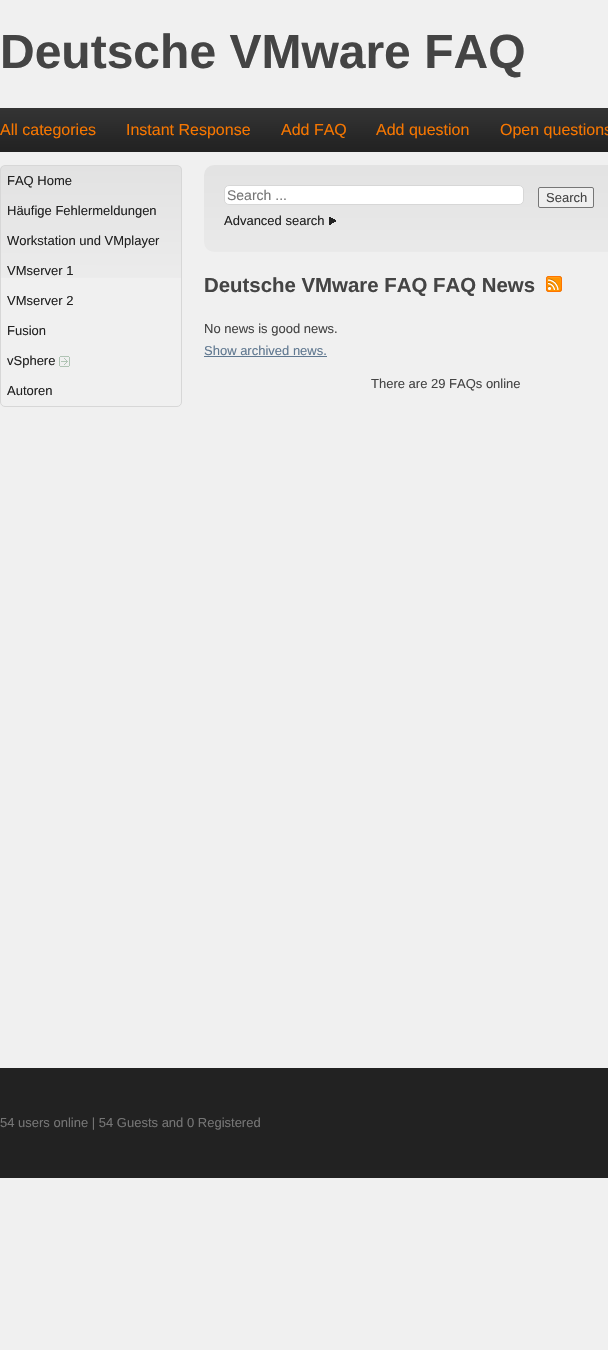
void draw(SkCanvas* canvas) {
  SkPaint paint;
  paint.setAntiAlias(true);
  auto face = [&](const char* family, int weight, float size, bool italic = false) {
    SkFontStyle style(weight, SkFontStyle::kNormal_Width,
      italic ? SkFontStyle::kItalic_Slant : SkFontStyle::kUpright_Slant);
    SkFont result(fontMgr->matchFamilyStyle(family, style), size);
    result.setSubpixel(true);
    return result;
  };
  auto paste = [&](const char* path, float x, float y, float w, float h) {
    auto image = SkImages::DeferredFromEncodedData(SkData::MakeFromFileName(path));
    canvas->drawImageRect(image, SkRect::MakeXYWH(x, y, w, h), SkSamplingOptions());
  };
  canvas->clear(0xfff0f0f0);
  paste("img/1.png", 0, 108, 608, 44);
  paste("img/2.png", 0, 166, 182, 112);
  paint.setStroke(true);
  paint.setStrokeWidth(1);
  paint.setColor(0xffd7d7d7);
  canvas->drawRoundRect(SkRect::MakeXYWH(0.5f, 165.5f, 181, 241), 4.5f, 4.5f, paint);
  paste("img/3.png", 59, 356, 11, 11);
  paste("img/4.png", 204, 165, 404, 87);
  paint.setStroke(false);
  paint.setColor(0xffffffff);
  canvas->drawRoundRect(SkRect::MakeXYWH(224.5f, 185.5f, 299, 19), 4.5f, 4.5f, paint);
  paint.setStroke(true);
  paint.setColor(0xffd7d7d7);
  canvas->drawRoundRect(SkRect::MakeXYWH(224.5f, 185.5f, 299, 19), 4.5f, 4.5f, paint);
  paint.setStroke(false);
  paint.setColor(0xffefefef);
  canvas->drawRoundRect(SkRect::MakeXYWH(538.5f, 187.5f, 55, 20), 1.5f, 1.5f, paint);
  paint.setStroke(true);
  paint.setColor(0xff767676);
  canvas->drawRoundRect(SkRect::MakeXYWH(538.5f, 187.5f, 55, 20), 1.5f, 1.5f, paint);
  paste("img/5.png", 329, 217, 7, 8);
  paste("img/6.png", 546, 276, 16, 16);
  paint.setStroke(false);
  paint.setColor(0xff607890);
  canvas->drawRect(SkRect::MakeXYWH(204, 356, 123, 1), paint);
  paint.setColor(0xff222222);
  canvas->drawRect(SkRect::MakeXYWH(0, 1068, 608, 110), paint);
  auto f0 = face("Liberation Sans", 700, 48);
  paint.setColor(0xff444444);
  canvas->drawString("Deutsche VMware FAQ", 0, 68, f0, paint);
  auto f1 = face("Liberation Sans", 400, 16);
  paint.setColor(0xfff67600);
  {
    const struct { const char* s; float x, y; } items[] = {
      {"All categories", 0, 135},
      {"Instant Response", 126, 135},
      {"Add FAQ", 281, 135},
      {"Add question", 376, 135},
      {"Open questions", 500, 135},
    };
    for (auto [s, x, y] : items) {
      canvas->drawString(s, x, y, f1, paint);
    }
  }
  auto f2 = face("Liberation Sans", 400, 13);
  paint.setColor(0xff222222);
  {
    const struct { const char* s; float x, y; } items[] = {
      {"FAQ Home", 7, 185},
      {"Häufige Fehlermeldungen", 7, 215},
      {"Workstation und VMplayer", 7, 245},
      {"VMserver 1", 7, 275},
      {"VMserver 2", 7, 305},
      {"Fusion", 7, 335},
      {"vSphere", 7, 365},
      {"Autoren", 7, 395},
    };
    for (auto [s, x, y] : items) {
      canvas->drawString(s, x, y, f2, paint);
    }
  }
  auto f3 = face("Liberation Sans", 400, 14);
  paint.setColor(0xff757575);
  canvas->drawString("Search ...", 227, 200, f3, paint);
  paint.setColor(0xff444444);
  canvas->drawString("Search", 546, 202, f2, paint);
  paint.setColor(0xff222222);
  canvas->drawString("Advanced search", 224, 225, f2, paint);
  auto f4 = face("Liberation Sans", 700, 20.4f);
  paint.setColor(0xff444444);
  canvas->drawString("Deutsche VMware FAQ FAQ News", 204, 292, f4, paint);
  canvas->drawString("No news is good news.", 204, 333, f2, paint);
  paint.setColor(0xff607890);
  canvas->drawString("Show archived news.", 204, 355, f2, paint);
  paint.setColor(0xff444444);
  canvas->drawString("There are 29 FAQs online", 371, 388, f2, paint);
  paint.setColor(0xff757575);
  canvas->drawString("54 users online | 54 Guests and 0 Registered", 0, 1127, f2, paint);
}
